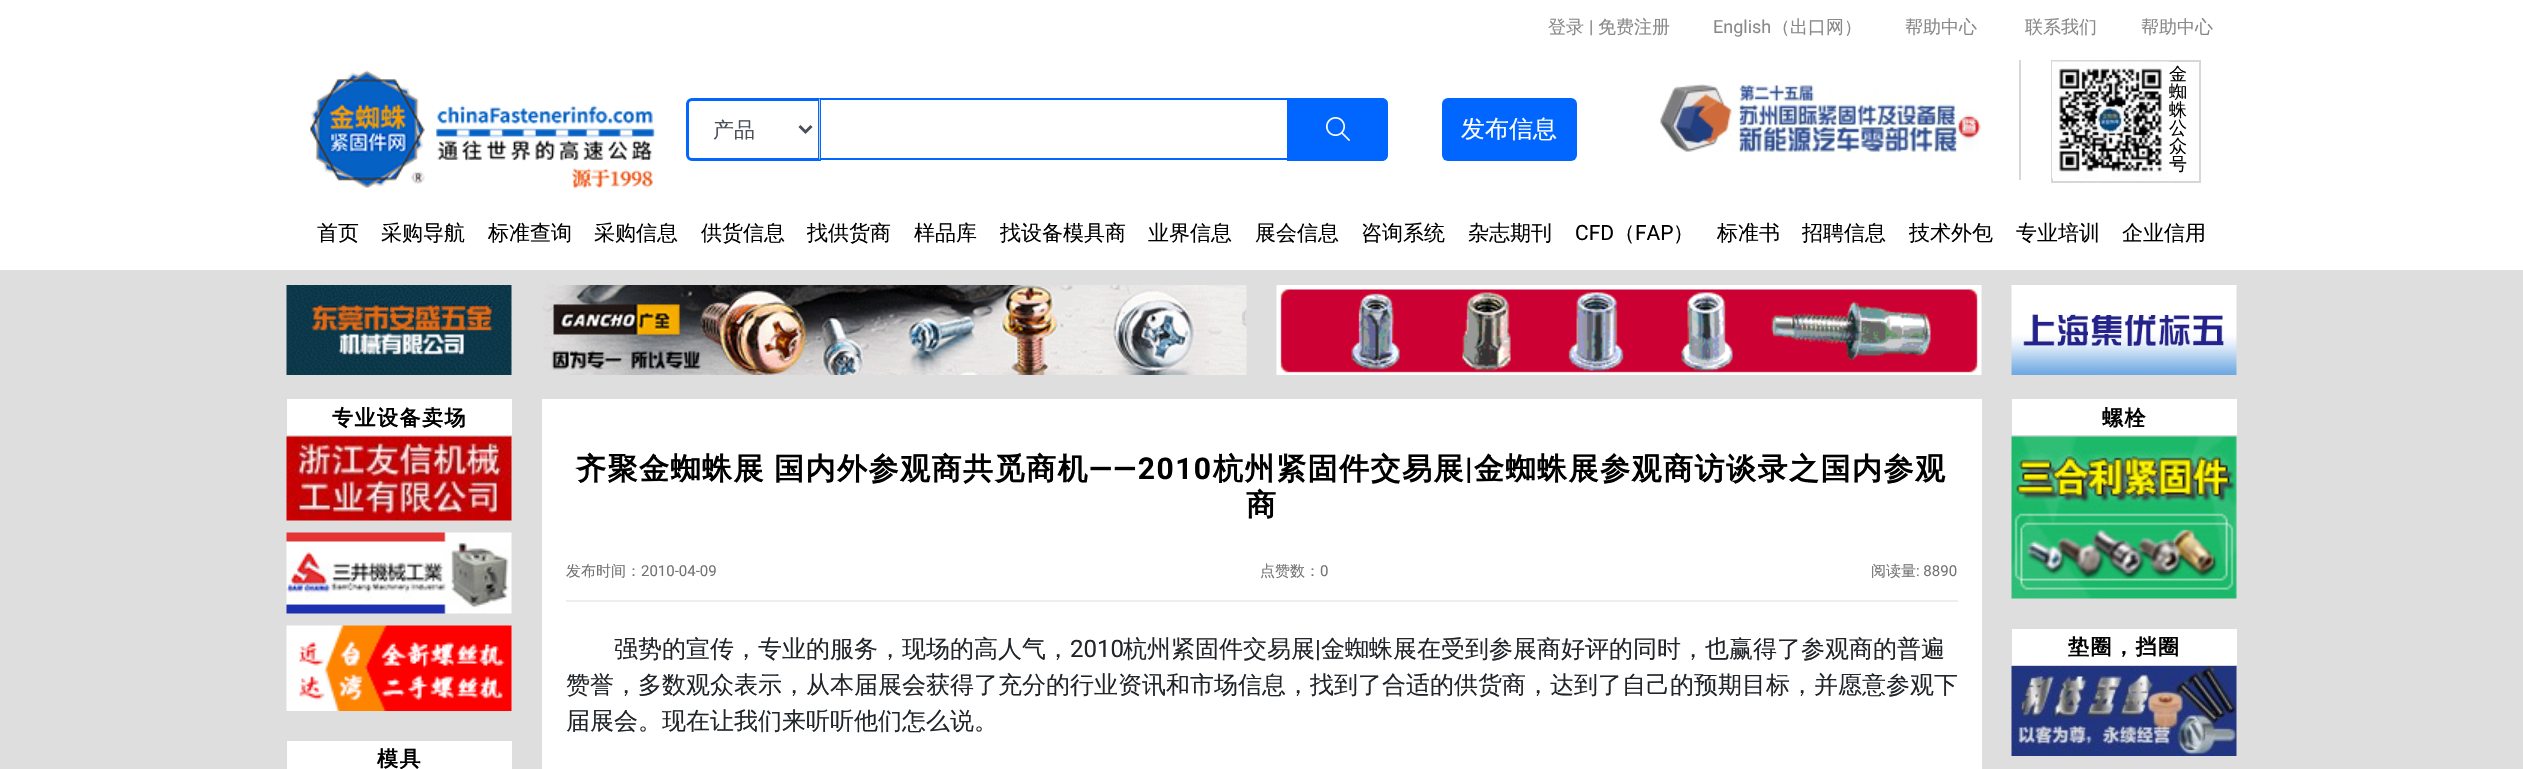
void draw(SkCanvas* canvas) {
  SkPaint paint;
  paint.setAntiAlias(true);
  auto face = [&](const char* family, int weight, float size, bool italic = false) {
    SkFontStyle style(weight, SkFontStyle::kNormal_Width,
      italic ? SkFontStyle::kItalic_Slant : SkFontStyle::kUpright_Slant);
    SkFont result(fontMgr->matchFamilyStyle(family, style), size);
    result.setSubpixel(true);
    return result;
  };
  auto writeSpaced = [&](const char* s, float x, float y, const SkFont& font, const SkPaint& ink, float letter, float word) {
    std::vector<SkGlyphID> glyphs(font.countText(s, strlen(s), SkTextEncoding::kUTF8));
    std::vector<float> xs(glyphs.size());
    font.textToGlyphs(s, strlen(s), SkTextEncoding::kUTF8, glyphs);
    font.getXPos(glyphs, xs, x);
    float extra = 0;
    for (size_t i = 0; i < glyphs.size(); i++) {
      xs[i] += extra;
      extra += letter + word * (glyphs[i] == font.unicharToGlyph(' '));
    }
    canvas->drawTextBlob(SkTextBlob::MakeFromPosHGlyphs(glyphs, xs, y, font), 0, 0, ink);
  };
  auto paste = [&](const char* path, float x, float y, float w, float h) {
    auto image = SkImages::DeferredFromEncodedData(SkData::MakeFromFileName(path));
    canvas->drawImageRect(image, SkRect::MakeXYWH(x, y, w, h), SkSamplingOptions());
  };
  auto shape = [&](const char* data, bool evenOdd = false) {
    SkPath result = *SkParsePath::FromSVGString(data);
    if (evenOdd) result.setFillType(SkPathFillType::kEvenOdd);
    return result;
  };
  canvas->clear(0xffffffff);
  paste("img/1.png", 310, 70, 345, 118);
  paint.setStroke(true);
  paint.setStrokeWidth(3);
  paint.setColor(0xff0066ff);
  canvas->drawPath(shape("M692 99.5H819.5V159.5H692C689.5 159.5 687.5 157.5 687.5 155V104C687.5 101.5 689.5 99.5 692 99.5Z"), paint);
  paint.setColor(0xff495057);
  canvas->drawPath(shape("M799.5 126L805.5 132L811.5 126"), paint);
  paint.setStroke(false);
  paint.setColor(0xff0066ff);
  canvas->drawPath(shape("M819 98H1290L1287 100H820Z"), paint);
  canvas->drawRect(SkRect::MakeXYWH(1287, 98, 2, 63), paint);
  canvas->drawPath(shape("M1290 160H819L820 158H1287Z"), paint);
  paint.setColor(0xffced4da);
  canvas->drawPath(shape("M819 160V98L820 100V158Z"), paint);
  paint.setColor(0xff0066ff);
  canvas->drawPath(shape("M1289 98H1382C1385.5 98 1388 100.5 1388 104V155C1388 158.5 1385.5 161 1382 161H1289Z"), paint);
  paste("img/2.png", 1326, 117, 24, 24);
  canvas->drawRoundRect(SkRect::MakeXYWH(1442, 98, 135, 63), 6, 6, paint);
  paint.setColor(0xffd7d7d7);
  canvas->drawRect(SkRect::MakeXYWH(2019, 60, 2, 120), paint);
  paste("img/3.png", 1660, 84, 321, 69);
  paint.setStroke(true);
  paint.setStrokeWidth(2);
  canvas->drawRect(SkRect::MakeXYWH(2052, 61, 148, 121), paint);
  paste("img/4.png", 2052, 61, 117, 118);
  paint.setStroke(false);
  paint.setColor(0xffdedede);
  canvas->drawRect(SkRect::MakeXYWH(0, 270, 2523, 499), paint);
  paste("img/5.png", 286, 285, 226, 90);
  paste("img/6.png", 542, 285, 705, 90);
  paste("img/7.png", 1276, 285, 706, 90);
  paste("img/8.png", 2011, 285, 226, 90);
  {
    const struct { float x, y, w, h; SkColor color; } items[] = {
      {2236, 666, 1, 1, 0xffbfbfbf},
      {287, 399, 225, 36, 0xffffffff},
      {287, 435, 225, 2, 0xffd7d7d7},
    };
    for (auto [x, y, w, h, color] : items) {
      paint.setColor(color);
      canvas->drawRect(SkRect::MakeXYWH(x, y, w, h), paint);
    }
  }
  paste("img/9.png", 286, 436, 226, 85);
  paste("img/10.png", 286, 532, 226, 82);
  paste("img/11.png", 286, 625, 226, 86);
  {
    const struct { float x, y, w, h; SkColor color; } items[] = {
      {287, 741, 225, 28, 0xffffffff},
      {2012, 399, 225, 36, 0xffffffff},
      {2012, 435, 225, 2, 0xffd7d7d7},
    };
    for (auto [x, y, w, h, color] : items) {
      paint.setColor(color);
      canvas->drawRect(SkRect::MakeXYWH(x, y, w, h), paint);
    }
  }
  paste("img/12.png", 2011, 436, 226, 163);
  paint.setColor(0xffffffff);
  canvas->drawRect(SkRect::MakeXYWH(2012, 629, 225, 36), paint);
  paint.setColor(0xffd7d7d7);
  canvas->drawRect(SkRect::MakeXYWH(2012, 665, 225, 1), paint);
  paste("img/13.png", 2011, 666, 226, 90);
  paint.setColor(0xffffffff);
  canvas->drawRect(SkRect::MakeXYWH(542, 399, 1440, 370), paint);
  paint.setColor(0xffeeeeee);
  canvas->drawRect(SkRect::MakeXYWH(566, 600, 1392, 2), paint);
  auto f0 = face("WenQuanYi Zen Hei", 500, 18);
  paint.setColor(0xff898989);
  canvas->drawString("登录", 1548, 33, f0, paint);
  auto f1 = face("Roboto", 400, 18);
  canvas->drawString("|", 1589, 33, f1, paint);
  canvas->drawString("免费注册", 1598, 33, f0, paint);
  canvas->drawString("English", 1713, 33, f1, paint);
  {
    const struct { const char* s; float x, y; } items[] = {
      {"（出口网）", 1772, 33},
      {"帮助中心", 1905, 33},
      {"联系我们", 2025, 33},
      {"帮助中心", 2141, 33},
    };
    for (auto [s, x, y] : items) {
      canvas->drawString(s, x, y, f0, paint);
    }
  }
  auto f2 = face("WenQuanYi Zen Hei", 500, 21);
  paint.setColor(0xff495057);
  canvas->drawString("产品", 713, 137, f2, paint);
  auto f3 = face("WenQuanYi Zen Hei", 500, 24);
  paint.setColor(0xffffffff);
  canvas->drawString("发布信息", 1461, 137, f3, paint);
  paint.setColor(0xff000000);
  {
    const struct { const char* s; float x, y; } items[] = {
      {"金", 2169, 80},
      {"蜘", 2169, 98},
      {"蛛", 2169, 116},
      {"公", 2169, 134},
      {"众", 2169, 152},
      {"号", 2169, 170},
    };
    for (auto [s, x, y] : items) {
      canvas->drawString(s, x, y, f0, paint);
    }
  }
  {
    const struct { const char* s; float x, y; } items[] = {
      {"首页", 317, 240},
      {"采购导航", 381, 240},
      {"标准查询", 488, 240},
      {"采购信息", 594, 240},
      {"供货信息", 701, 240},
      {"找供货商", 807, 240},
      {"样品库", 914, 240},
      {"找设备模具商", 1000, 240},
      {"业界信息", 1148, 240},
      {"展会信息", 1255, 240},
      {"咨询系统", 1361, 240},
      {"杂志期刊", 1468, 240},
    };
    for (auto [s, x, y] : items) {
      canvas->drawString(s, x, y, f2, paint);
    }
  }
  auto f4 = face("Roboto", 400, 21);
  canvas->drawString("CFD", 1575, 240, f4, paint);
  canvas->drawString("（", 1614, 240, f2, paint);
  canvas->drawString("FAP", 1635, 240, f4, paint);
  {
    const struct { const char* s; float x, y; } items[] = {
      {"）", 1673, 240},
      {"标准书", 1717, 240},
      {"招聘信息", 1802, 240},
      {"技术外包", 1909, 240},
      {"专业培训", 2016, 240},
      {"企业信用", 2122, 240},
    };
    for (auto [s, x, y] : items) {
      canvas->drawString(s, x, y, f2, paint);
    }
  }
  auto f5 = face("WenQuanYi Zen Hei", 700, 21);
  {
    const struct { const char* s; float x, y; } items[] = {
      {"专业设备卖场", 332, 425},
      {"模具", 377, 766},
      {"螺栓", 2102, 425},
      {"垫圈，挡圈", 2068, 654},
    };
    for (auto [s, x, y] : items) {
      writeSpaced(s, x, y, f5, paint, 1.5f, 0);
    }
  }
  auto f6 = face("WenQuanYi Zen Hei", 700, 30);
  writeSpaced("齐聚金蜘蛛展", 576, 479, f6, paint, 1.5f, 0);
  writeSpaced("国内外参观商共觅商机", 774, 479, f6, paint, 1.5f, 0);
  auto f7 = face("Roboto", 700, 30);
  writeSpaced("——2010", 1089, 479, f7, paint, 1.5f, 0);
  writeSpaced("杭州紧固件交易展", 1213, 479, f6, paint, 1.5f, 0);
  writeSpaced("|", 1465, 479, f7, paint, 1.5f, 0);
  writeSpaced("金蜘蛛展参观商访谈录之国内参观", 1474, 479, f6, paint, 1.5f, 0);
  writeSpaced("商", 1246, 515, f6, paint, 1.5f, 0);
  auto f8 = face("WenQuanYi Zen Hei", 500, 15);
  paint.setColor(0xff737373);
  canvas->drawString("发布时间：", 566, 576, f8, paint);
  auto f9 = face("Roboto", 400, 15);
  canvas->drawString("2010-04-09", 641, 576, f9, paint);
  canvas->drawString("点赞数：", 1260, 576, f8, paint);
  canvas->drawString("0", 1320, 576, f9, paint);
  canvas->drawString("阅读量", 1871, 576, f8, paint);
  canvas->drawString(": 8890", 1916, 576, f9, paint);
  paint.setColor(0xff212529);
  canvas->drawString("强势的宣传，专业的服务，现场的高人气，", 614, 657, f3, paint);
  auto f10 = face("Roboto", 400, 24);
  canvas->drawString("2010", 1070, 657, f10, paint);
  canvas->drawString("杭州紧固件交易展", 1123, 657, f3, paint);
  canvas->drawString("|", 1315, 657, f10, paint);
  {
    const struct { const char* s; float x, y; } items[] = {
      {"金蜘蛛展在受到参展商好评的同时，也赢得了参观商的普遍", 1321, 657},
      {"赞誉，多数观众表示，从本届展会获得了充分的行业资讯和市场信息，找到了合适的供货商，达到了自己的预期目标，并愿意参观下", 566, 693},
      {"届展会。现在让我们来听听他们怎么说。", 566, 729},
    };
    for (auto [s, x, y] : items) {
      canvas->drawString(s, x, y, f3, paint);
    }
  }
}
